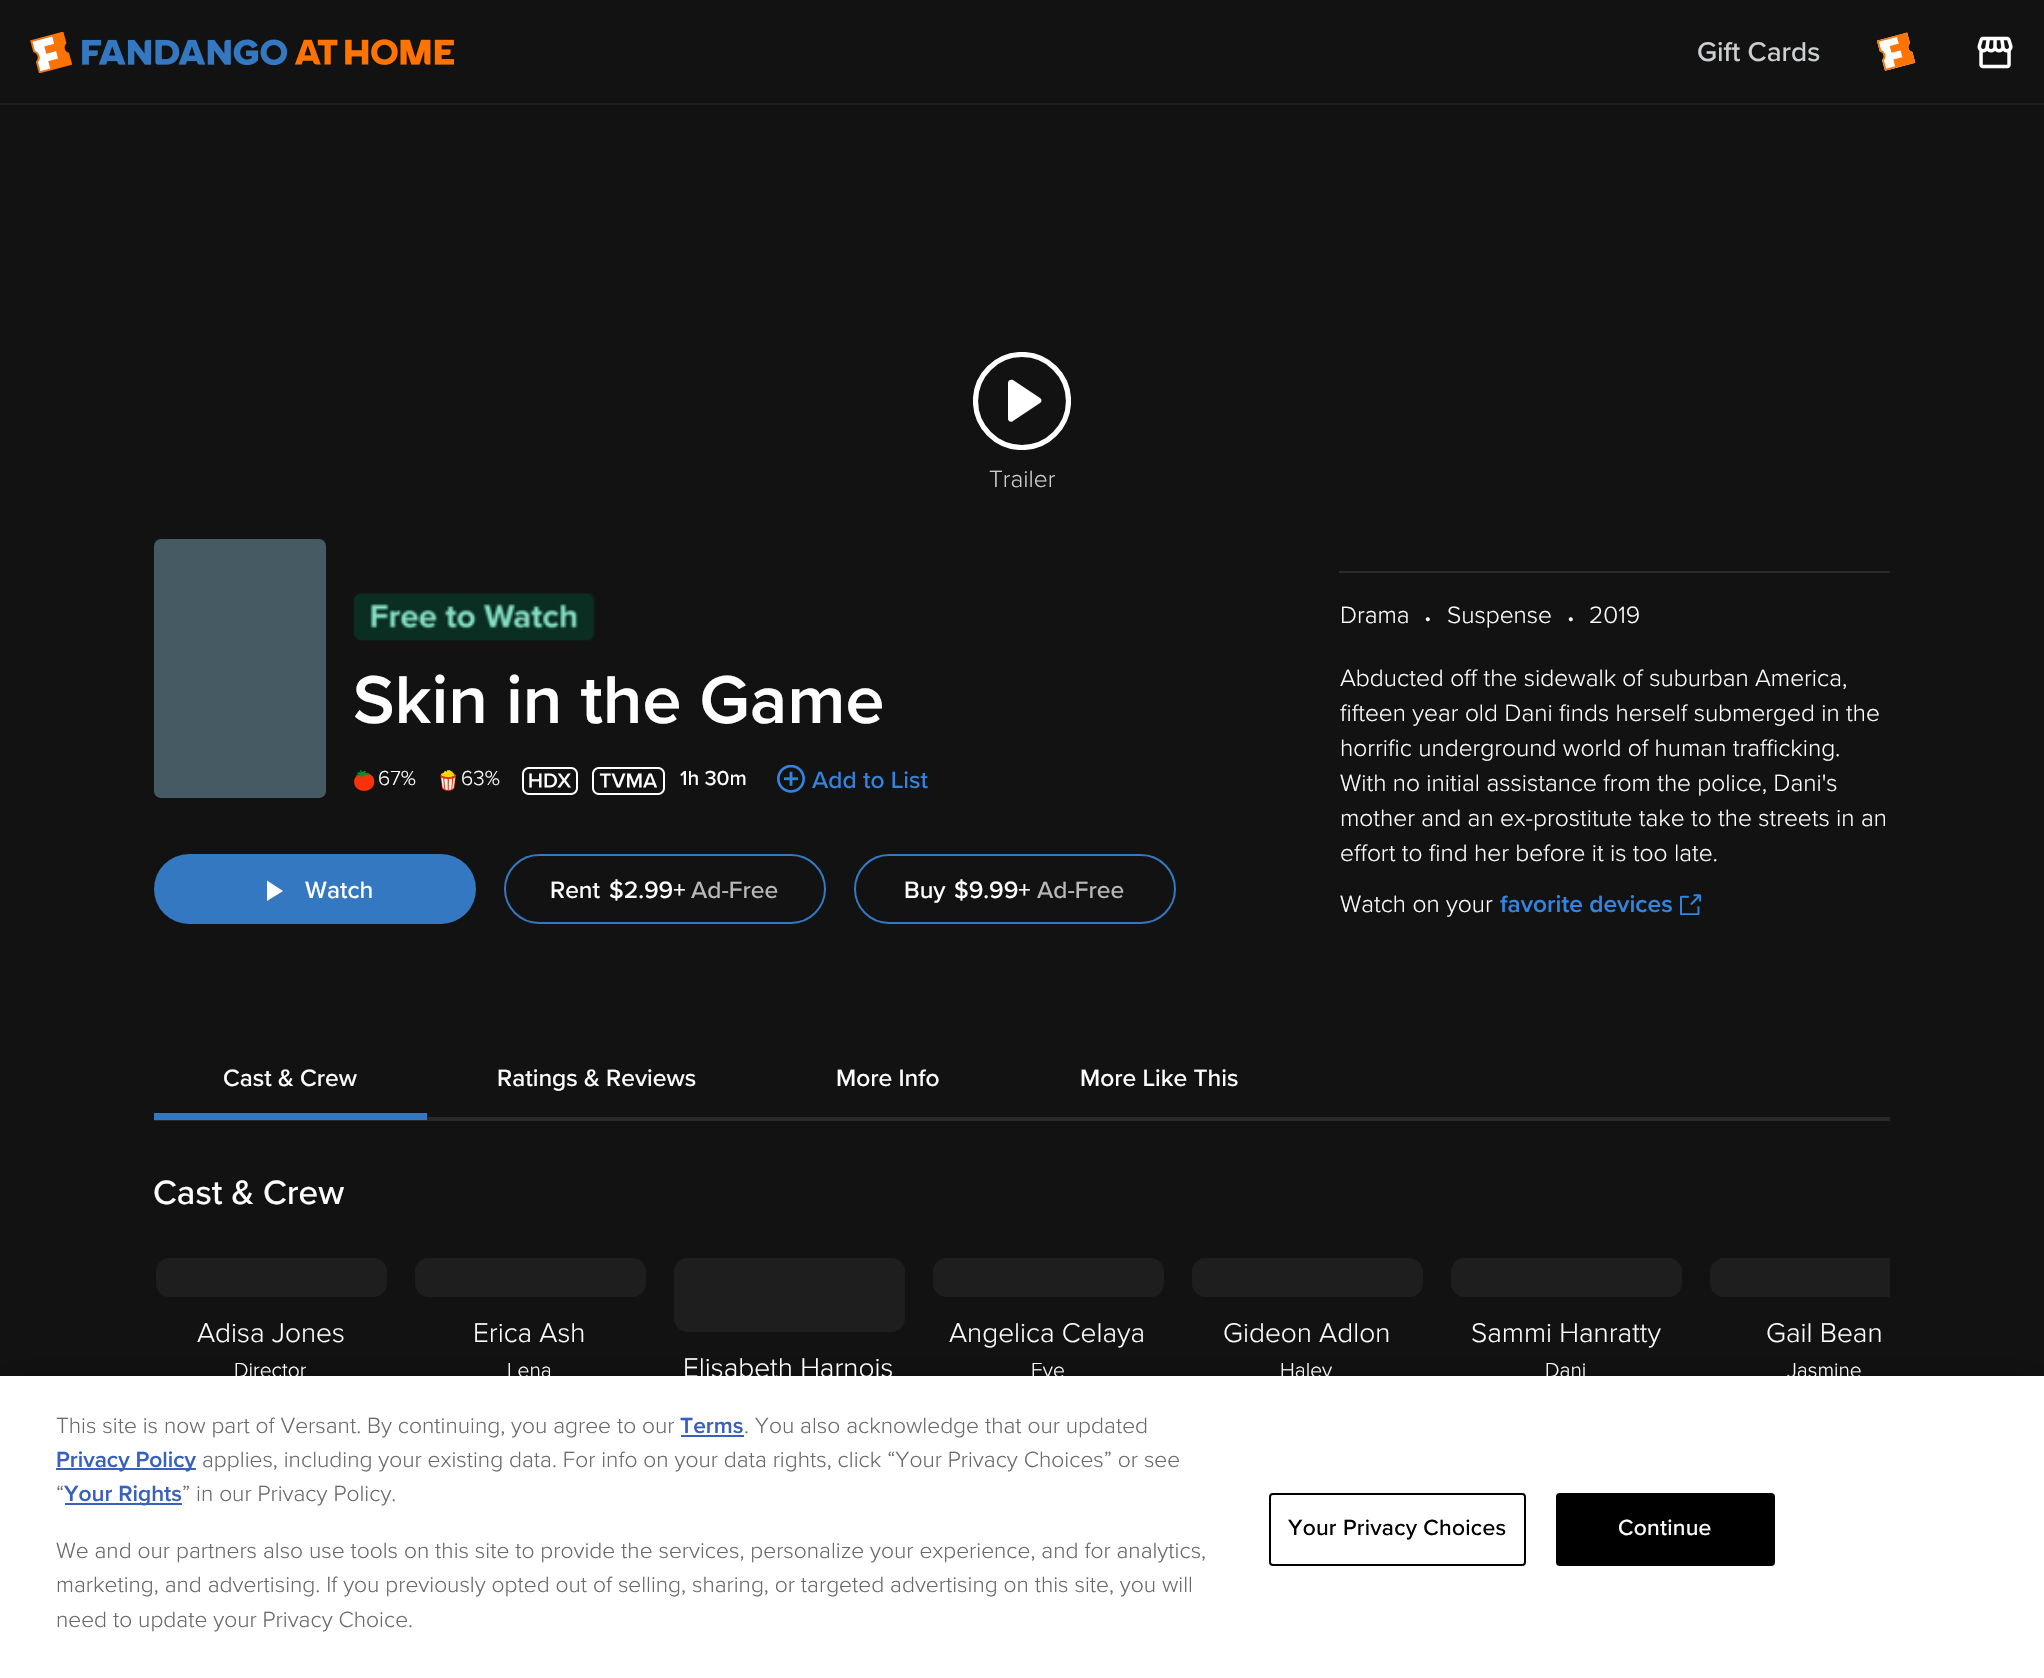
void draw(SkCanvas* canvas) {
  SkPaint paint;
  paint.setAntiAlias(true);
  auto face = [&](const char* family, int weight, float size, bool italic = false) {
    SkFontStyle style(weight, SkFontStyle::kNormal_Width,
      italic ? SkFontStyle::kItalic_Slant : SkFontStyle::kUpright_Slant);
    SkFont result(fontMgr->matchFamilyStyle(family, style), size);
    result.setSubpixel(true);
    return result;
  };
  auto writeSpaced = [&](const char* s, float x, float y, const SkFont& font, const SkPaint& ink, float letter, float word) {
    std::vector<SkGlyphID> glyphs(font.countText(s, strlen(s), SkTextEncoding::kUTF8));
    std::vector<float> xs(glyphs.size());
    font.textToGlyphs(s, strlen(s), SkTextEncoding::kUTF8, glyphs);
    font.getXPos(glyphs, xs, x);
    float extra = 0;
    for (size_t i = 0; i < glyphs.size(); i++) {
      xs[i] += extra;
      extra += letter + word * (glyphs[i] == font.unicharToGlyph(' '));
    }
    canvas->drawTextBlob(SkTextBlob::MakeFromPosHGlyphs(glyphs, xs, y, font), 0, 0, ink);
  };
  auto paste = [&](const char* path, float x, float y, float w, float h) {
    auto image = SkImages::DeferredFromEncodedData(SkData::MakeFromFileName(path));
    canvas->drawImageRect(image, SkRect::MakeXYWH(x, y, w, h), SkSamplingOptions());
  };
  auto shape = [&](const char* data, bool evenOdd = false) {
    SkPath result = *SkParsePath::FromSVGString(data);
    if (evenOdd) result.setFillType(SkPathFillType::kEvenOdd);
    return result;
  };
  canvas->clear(0xff121212);
  paint.setColor(0xff1e1e1e);
  canvas->drawRect(SkRect::MakeXYWH(0, 103, 2044, 2), paint);
  paste("img/1.png", 30, 32, 425, 41);
  paste("img/2.png", 1876, 32, 40, 39);
  paste("img/3.png", 1977, 36, 36, 33);
  canvas->save();
  canvas->clipRect(SkRect::MakeXYWH(973, 352, 98, 98));
  paint.setStroke(true);
  paint.setStrokeWidth(5.2f);
  paint.setColor(0xffffffff);
  canvas->drawCircle(1022, 401, 46.5f, paint);
  canvas->restore();
  paint.setStroke(false);
  canvas->drawPath(shape("M1040 398L1013 380C1011 379 1008 380 1008 383V419C1008 421 1011 423 1013 421L1040 403C1042 402 1042 399 1040 398Z", true), paint);
  paint.setColor(0xff465a63);
  canvas->drawRoundRect(SkRect::MakeXYWH(154, 539, 172, 259), 7, 7, paint);
  paste("img/4.png", 353, 593, 242, 48);
  paste("img/5.png", 354, 770, 21, 21);
  paste("img/6.png", 440, 770, 16, 21);
  paste("img/7.png", 522, 767, 56, 28);
  paste("img/8.png", 592, 767, 73, 28);
  paste("img/9.png", 777, 765, 28, 28);
  paint.setColor(0xff2a2a2a);
  canvas->drawRect(SkRect::MakeXYWH(1339, 571, 551, 2), paint);
  paste("img/10.png", 1680, 894, 21, 21);
  paint.setColor(0xff3478c1);
  canvas->drawRoundRect(SkRect::MakeXYWH(154, 854, 322, 70), 35, 35, paint);
  paint.setColor(0xffffffff);
  canvas->drawPath(shape("M267 901V880.5L283 891Z"), paint);
  paint.setStroke(true);
  paint.setStrokeWidth(2);
  paint.setColor(0xff3478c1);
  canvas->drawRoundRect(SkRect::MakeXYWH(505, 855, 320, 68), 34, 34, paint);
  canvas->drawRoundRect(SkRect::MakeXYWH(855, 855, 320, 68), 34, 34, paint);
  paint.setStroke(false);
  paint.setColor(0xff2a2a2a);
  canvas->drawRect(SkRect::MakeXYWH(154, 1117, 1736, 4), paint);
  paint.setColor(0xff3478c1);
  canvas->drawRect(SkRect::MakeXYWH(154, 1113, 273, 7), paint);
  paint.setColor(0xff1e1e1e);
  canvas->drawRoundRect(SkRect::MakeXYWH(156, 1258, 231, 39), 14, 14, paint);
  canvas->drawRoundRect(SkRect::MakeXYWH(415, 1258, 231, 39), 14, 14, paint);
  canvas->drawRoundRect(SkRect::MakeXYWH(674, 1258, 231, 74), 14, 14, paint);
  canvas->drawRoundRect(SkRect::MakeXYWH(933, 1258, 231, 39), 14, 14, paint);
  canvas->drawRoundRect(SkRect::MakeXYWH(1192, 1258, 231, 39), 14, 14, paint);
  canvas->drawRoundRect(SkRect::MakeXYWH(1451, 1258, 231, 39), 14, 14, paint);
  canvas->drawPath(shape("M1724 1258H1890V1297H1724C1716.5 1297 1710 1290.5 1710 1283V1272C1710 1264.5 1716.5 1258 1724 1258Z"), paint);
  paint.setColor(0x33000000);
  paint.setMaskFilter(SkMaskFilter::MakeBlur(kNormal_SkBlurStyle, 16));
  canvas->drawRect(SkRect::MakeXYWH(0, 1376, 2044, 302), paint);
  paint.setMaskFilter(nullptr);
  {
    const struct { float x, y, w, h; SkColor color; } items[] = {
      {0, 1376, 2044, 302, 0xffffffff},
      {681, 1435, 63, 2, 0xff3860be},
      {56, 1468, 140, 2, 0xff3860be},
      {65, 1503, 117, 2, 0xff3860be},
    };
    for (auto [x, y, w, h, color] : items) {
      paint.setColor(color);
      canvas->drawRect(SkRect::MakeXYWH(x, y, w, h), paint);
    }
  }
  paint.setStroke(true);
  paint.setColor(0xff000000);
  canvas->drawRoundRect(SkRect::MakeXYWH(1270, 1494, 255, 71), 3, 3, paint);
  paint.setStroke(false);
  canvas->drawRoundRect(SkRect::MakeXYWH(1557, 1494, 217, 71), 3, 3, paint);
  paint.setStroke(true);
  canvas->drawRoundRect(SkRect::MakeXYWH(1557, 1494, 217, 71), 3, 3, paint);
  auto f0 = face("Proxima Nova", 500, 28);
  paint.setStroke(false);
  paint.setColor(0xffcccfd1);
  canvas->drawString("Gift Cards", 1697, 61, f0, paint);
  auto f1 = face("Proxima Nova", 300, 24.5f);
  canvas->drawString("Trailer", 989, 487, f1, paint);
  auto f2 = face("Proxima Nova", 600, 70);
  paint.setColor(0xffffffff);
  canvas->drawString("Skin in the Game", 353, 723, f2, paint);
  auto f3 = face("Proxima Nova", 300, 21);
  canvas->drawString("67%", 378, 785, f3, paint);
  canvas->drawString("63%", 461, 785, f3, paint);
  auto f4 = face("Proxima Nova", 500, 21);
  canvas->drawString("1h 30m", 680, 785, f4, paint);
  auto f5 = face("Proxima Nova", 500, 24.5f);
  paint.setColor(0xff3185e0);
  canvas->drawString("Add to List", 812, 788, f5, paint);
  paint.setColor(0xffffffff);
  canvas->drawString("Drama", 1340, 623, f1, paint);
  auto f6 = face("Proxima Nova", 300, 44);
  canvas->drawString("·", 1423, 630, f6, paint);
  canvas->drawString("Suspense", 1447, 623, f1, paint);
  canvas->drawString("·", 1566, 630, f6, paint);
  {
    const struct { const char* s; float x, y; } items[] = {
      {"2019", 1589, 623},
      {"Abducted off the sidewalk of suburban America,", 1340, 686},
      {"fifteen year old Dani finds herself submerged in the", 1340, 721},
      {"horrific underground world of human trafficking.", 1340, 756},
      {"With no initial assistance from the police, Dani's", 1340, 791},
      {"mother and an ex-prostitute take to the streets in an", 1340, 826},
      {"effort to find her before it is too late.", 1340, 861},
      {"Watch on your", 1340, 912},
    };
    for (auto [s, x, y] : items) {
      canvas->drawString(s, x, y, f1, paint);
    }
  }
  auto f7 = face("Proxima Nova", 600, 24.5f);
  paint.setColor(0xff3185e0);
  canvas->drawString("favorite devices", 1500, 912, f7, paint);
  paint.setColor(0xffffffff);
  {
    const struct { const char* s; float x, y; } items[] = {
      {"Watch", 305, 898},
      {"Rent", 550, 898},
      {"$2.99+", 609, 898},
    };
    for (auto [s, x, y] : items) {
      canvas->drawString(s, x, y, f5, paint);
    }
  }
  paint.setColor(0xffb8b8b8);
  canvas->drawString("Ad-Free", 691, 898, f5, paint);
  paint.setColor(0xffffffff);
  canvas->drawString("Buy", 904, 898, f5, paint);
  canvas->drawString("$9.99+", 954, 898, f5, paint);
  paint.setColor(0xffb8b8b8);
  canvas->drawString("Ad-Free", 1037, 898, f5, paint);
  paint.setColor(0xffffffff);
  {
    const struct { const char* s; float x, y; } items[] = {
      {"Cast & Crew", 223, 1086},
      {"Ratings & Reviews", 497, 1086},
      {"More Info", 836, 1086},
      {"More Like This", 1080, 1086},
    };
    for (auto [s, x, y] : items) {
      canvas->drawString(s, x, y, f5, paint);
    }
  }
  auto f8 = face("Proxima Nova", 500, 35);
  canvas->drawString("Cast & Crew", 153, 1204, f8, paint);
  auto f9 = face("Proxima Nova", 300, 28);
  canvas->drawString("Adisa Jones", 197, 1342, f9, paint);
  canvas->drawString("Director", 234, 1377, f3, paint);
  canvas->drawString("Erica Ash", 473, 1342, f9, paint);
  canvas->drawString("Lena", 507, 1377, f3, paint);
  canvas->drawString("Elisabeth Harnois", 683, 1377, f9, paint);
  canvas->drawString("Angelica Celaya", 949, 1342, f9, paint);
  canvas->drawString("Eve", 1031, 1377, f3, paint);
  canvas->drawString("Gideon Adlon", 1223, 1342, f9, paint);
  canvas->drawString("Haley", 1280, 1377, f3, paint);
  canvas->drawString("Sammi Hanratty", 1471, 1342, f9, paint);
  canvas->drawString("Dani", 1545, 1377, f3, paint);
  canvas->drawString("Gail Bean", 1766, 1342, f9, paint);
  canvas->drawString("Jasmine", 1787, 1377, f3, paint);
  auto f10 = face("Proxima Nova", 300, 22.75f);
  paint.setColor(0xff696969);
  canvas->drawString("This site is now part of Versant. By continuing, you agree to our", 56, 1433, f10, paint);
  auto f11 = face("Proxima Nova", 600, 22.75f);
  paint.setColor(0xff3860be);
  canvas->drawString("Terms", 680, 1433, f11, paint);
  paint.setColor(0xff696969);
  canvas->drawString(". You also acknowledge that our updated", 744, 1433, f10, paint);
  paint.setColor(0xff3860be);
  canvas->drawString("Privacy Policy", 56, 1467, f11, paint);
  paint.setColor(0xff696969);
  canvas->drawString("applies, including your existing data. For info on your data rights, click “Your Privacy Choices” or see", 202, 1467, f10, paint);
  canvas->drawString("“", 56, 1501, f10, paint);
  paint.setColor(0xff3860be);
  canvas->drawString("Your Rights", 64, 1501, f11, paint);
  paint.setColor(0xff696969);
  {
    const struct { const char* s; float x, y; } items[] = {
      {"” in our Privacy Policy.", 182, 1501},
      {"We and our partners also use tools on this site to provide the services, personalize your experience, and for analytics,", 56, 1558},
      {"marketing, and advertising. If you previously opted out of selling, sharing, or targeted advertising on this site, you will", 56, 1592},
      {"need to update your Privacy Choice.", 56, 1627},
    };
    for (auto [s, x, y] : items) {
      canvas->drawString(s, x, y, f10, paint);
    }
  }
  auto f12 = face("Proxima Nova", 500, 22.75f);
  paint.setColor(0xff000000);
  writeSpaced("Your Privacy Choices", 1288, 1535, f12, paint, 0.25f, 0);
  paint.setColor(0xffffffff);
  writeSpaced("Continue", 1618, 1535, f12, paint, 0.25f, 0);
}
